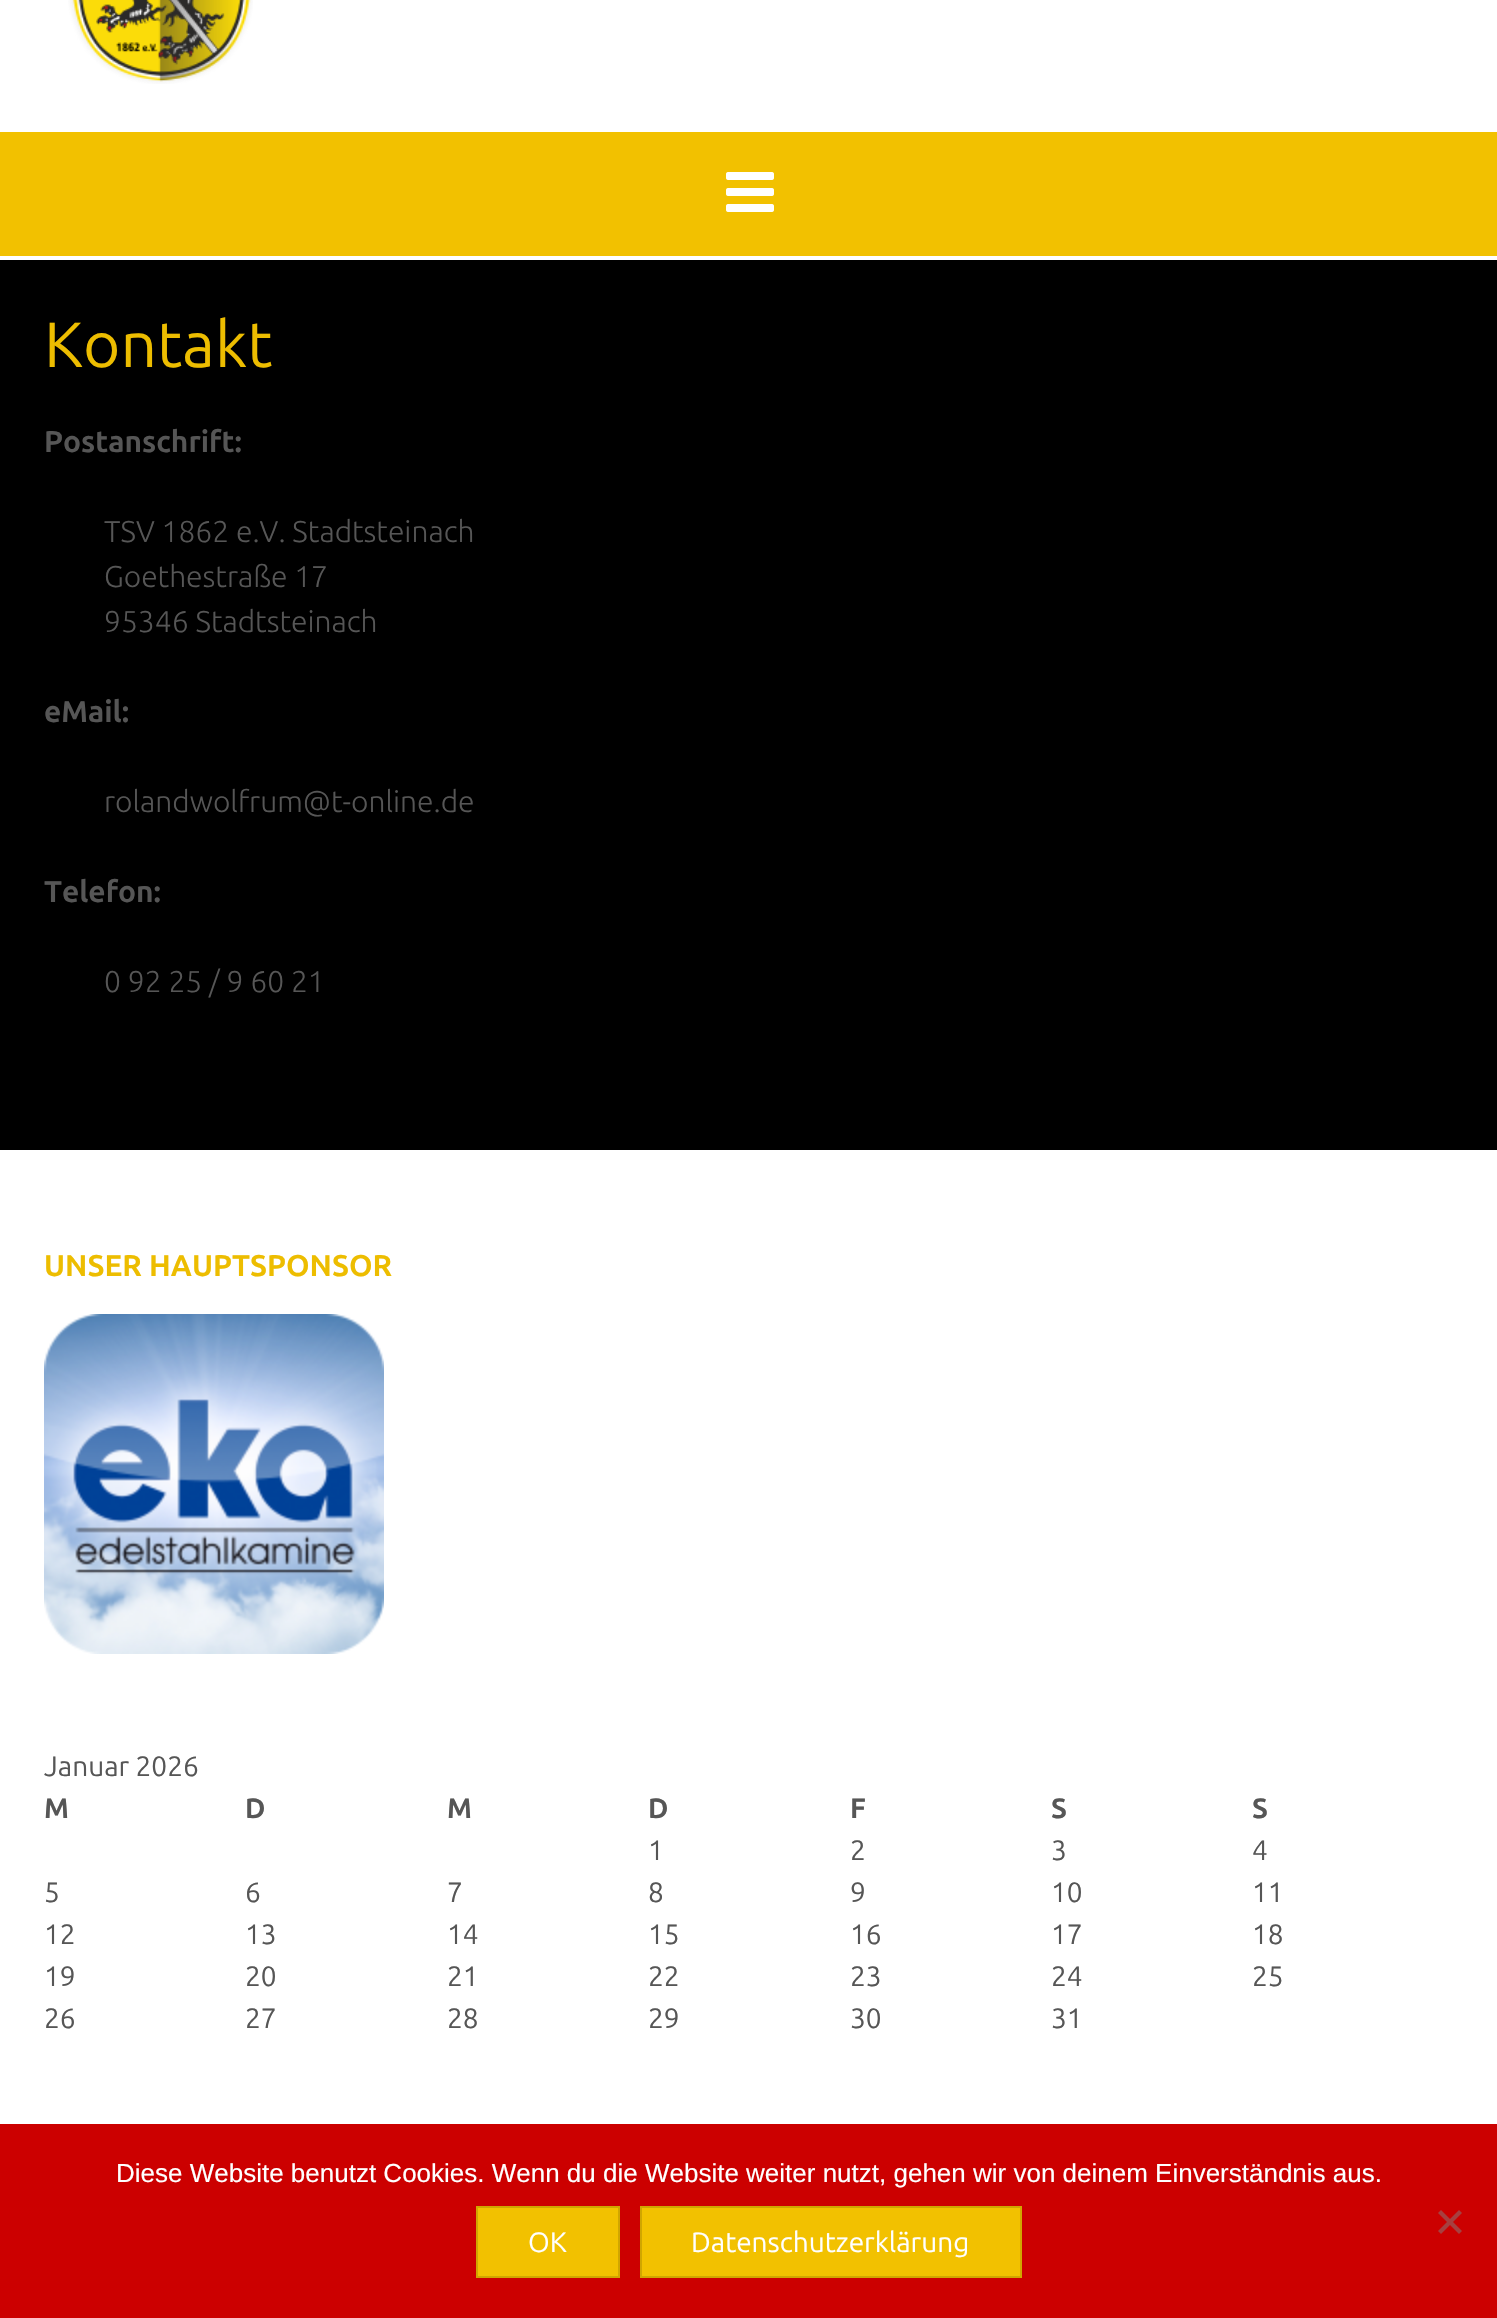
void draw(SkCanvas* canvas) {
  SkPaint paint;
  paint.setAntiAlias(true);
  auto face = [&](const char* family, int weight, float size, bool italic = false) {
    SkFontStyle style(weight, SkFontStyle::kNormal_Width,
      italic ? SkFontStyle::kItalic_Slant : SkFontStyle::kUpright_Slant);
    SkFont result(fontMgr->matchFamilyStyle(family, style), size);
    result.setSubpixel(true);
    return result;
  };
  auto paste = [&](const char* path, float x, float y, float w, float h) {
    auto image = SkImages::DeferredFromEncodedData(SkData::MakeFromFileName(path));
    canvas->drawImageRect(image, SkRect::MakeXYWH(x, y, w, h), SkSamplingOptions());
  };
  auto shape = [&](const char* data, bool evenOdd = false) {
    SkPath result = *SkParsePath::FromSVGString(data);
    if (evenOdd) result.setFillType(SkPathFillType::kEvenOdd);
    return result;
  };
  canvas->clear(0xff000000);
  paint.setColor(0xffffffff);
  canvas->drawRect(SkRect::MakeXYWH(0, 0, 1497, 132), paint);
  paste("img/1.png", 68, 0, 185, 84);
  paint.setColor(0xfff2c100);
  canvas->drawRect(SkRect::MakeXYWH(0, 132, 1497, 124), paint);
  paint.setColor(0xffffffff);
  canvas->drawRect(SkRect::MakeXYWH(0, 256, 1497, 4), paint);
  paste("img/2.png", 726, 172, 48, 40);
  canvas->drawRect(SkRect::MakeXYWH(0, 1150, 1497, 974), paint);
  paste("img/3.png", 44, 1314, 340, 340);
  paint.setColor(0xffcc0000);
  canvas->drawRect(SkRect::MakeXYWH(0, 2124, 1497, 194), paint);
  paint.setColor(0xffa64040);
  canvas->drawPath(shape("M1459 2210L1462 2213L1441 2234L1438 2231Z"), paint);
  canvas->drawPath(shape("M1438 2213L1441 2210L1462 2231L1459 2234Z"), paint);
  paint.setColor(0xfff2c100);
  canvas->drawRect(SkRect::MakeXYWH(477, 2207, 142, 70), paint);
  paint.setStroke(true);
  paint.setStrokeWidth(2);
  paint.setColor(0xffd0a600);
  canvas->drawRect(SkRect::MakeXYWH(477, 2207, 142, 70), paint);
  paint.setStroke(false);
  paint.setColor(0xfff2c100);
  canvas->drawRect(SkRect::MakeXYWH(641, 2207, 380, 70), paint);
  paint.setStroke(true);
  paint.setColor(0xffd0a600);
  canvas->drawRect(SkRect::MakeXYWH(641, 2207, 380, 70), paint);
  auto f0 = face("Ubuntu", 400, 64);
  paint.setStroke(false);
  paint.setColor(0xffedbd00);
  canvas->drawString("Kontakt", 44, 367, f0, paint);
  auto f1 = face("Ubuntu", 700, 30);
  paint.setColor(0xff565656);
  canvas->drawString("Postanschrift:", 44, 452, f1, paint);
  auto f2 = face("Ubuntu", 300, 30);
  {
    const struct { const char* s; float x, y; } items[] = {
      {"TSV 1862 e.V. Stadtsteinach", 104, 542},
      {"Goethestraße 17", 104, 587},
      {"95346 Stadtsteinach", 104, 632},
    };
    for (auto [s, x, y] : items) {
      canvas->drawString(s, x, y, f2, paint);
    }
  }
  canvas->drawString("eMail:", 44, 722, f1, paint);
  canvas->drawString("rolandwolfrum@t-online.de", 104, 812, f2, paint);
  canvas->drawString("Telefon:", 44, 902, f1, paint);
  canvas->drawString("0 92 25 / 9 60 21", 104, 992, f2, paint);
  paint.setColor(0xffedbd00);
  canvas->drawString("UNSER HAUPTSPONSOR", 44, 1276, f1, paint);
  auto f3 = face("Ubuntu", 400, 28);
  paint.setColor(0xff565656);
  canvas->drawString("Januar 2026", 44, 1776, f3, paint);
  auto f4 = face("Ubuntu", 700, 28);
  {
    const struct { const char* s; float x, y; } items[] = {
      {"M", 44, 1818},
      {"D", 245, 1818},
      {"M", 447, 1818},
      {"D", 648, 1818},
      {"F", 850, 1818},
      {"S", 1051, 1818},
      {"S", 1252, 1818},
    };
    for (auto [s, x, y] : items) {
      canvas->drawString(s, x, y, f4, paint);
    }
  }
  {
    const struct { const char* s; float x, y; } items[] = {
      {"1", 648, 1860},
      {"2", 850, 1860},
      {"3", 1051, 1860},
      {"4", 1252, 1860},
      {"5", 44, 1902},
      {"6", 245, 1902},
      {"7", 447, 1902},
      {"8", 648, 1902},
      {"9", 850, 1902},
      {"10", 1051, 1902},
      {"11", 1252, 1902},
      {"12", 44, 1944},
      {"13", 245, 1944},
      {"14", 447, 1944},
      {"15", 648, 1944},
      {"16", 850, 1944},
      {"17", 1051, 1944},
      {"18", 1252, 1944},
      {"19", 44, 1986},
      {"20", 245, 1986},
      {"21", 447, 1986},
      {"22", 648, 1986},
      {"23", 850, 1986},
      {"24", 1051, 1986},
      {"25", 1252, 1986},
      {"26", 44, 2028},
      {"27", 245, 2028},
      {"28", 447, 2028},
      {"29", 648, 2028},
      {"30", 850, 2028},
      {"31", 1051, 2028},
    };
    for (auto [s, x, y] : items) {
      canvas->drawString(s, x, y, f3, paint);
    }
  }
  auto f5 = face("Liberation Sans", 400, 26);
  paint.setColor(0xffffffff);
  canvas->drawString("Diese Website benutzt Cookies. Wenn du die Website weiter nutzt, gehen wir von deinem Einverständnis aus.", 116, 2182, f5, paint);
  canvas->drawString("OK", 528, 2252, f3, paint);
  canvas->drawString("Datenschutzerklärung", 691, 2252, f3, paint);
}
